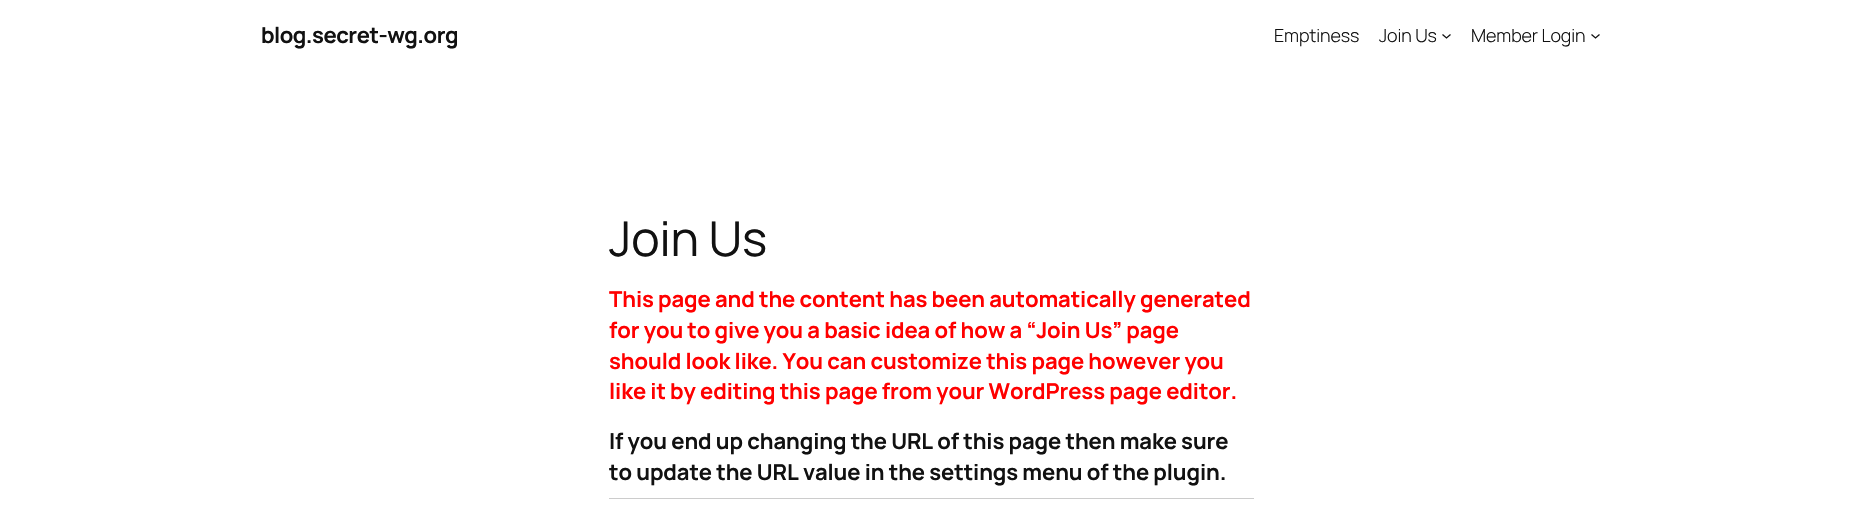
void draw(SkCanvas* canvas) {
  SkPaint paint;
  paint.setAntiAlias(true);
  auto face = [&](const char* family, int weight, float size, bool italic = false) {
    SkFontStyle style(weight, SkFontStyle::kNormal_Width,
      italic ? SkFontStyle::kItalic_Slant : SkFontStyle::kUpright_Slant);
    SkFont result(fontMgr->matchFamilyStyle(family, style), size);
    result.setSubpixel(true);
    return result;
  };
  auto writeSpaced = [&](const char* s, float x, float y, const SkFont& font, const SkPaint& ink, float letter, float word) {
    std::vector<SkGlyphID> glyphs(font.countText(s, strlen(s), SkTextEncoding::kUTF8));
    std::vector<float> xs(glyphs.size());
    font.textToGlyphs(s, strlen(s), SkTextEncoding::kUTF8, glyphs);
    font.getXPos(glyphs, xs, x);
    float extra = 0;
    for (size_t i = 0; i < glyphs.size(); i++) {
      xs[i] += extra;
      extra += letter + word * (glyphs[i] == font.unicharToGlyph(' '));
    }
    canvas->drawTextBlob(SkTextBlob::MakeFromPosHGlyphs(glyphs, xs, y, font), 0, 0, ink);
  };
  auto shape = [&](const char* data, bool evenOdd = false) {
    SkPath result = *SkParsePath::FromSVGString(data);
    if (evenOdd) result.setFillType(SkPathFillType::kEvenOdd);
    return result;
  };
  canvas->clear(0xffffffff);
  paint.setStroke(true);
  paint.setStrokeWidth(1.3f);
  paint.setColor(0xff111111);
  canvas->drawPath(shape("M1442.5 34.5L1446.5 38L1450.5 34.5"), paint);
  canvas->drawPath(shape("M1591.5 34.5L1595.5 38L1599.5 34.5"), paint);
  paint.setStroke(false);
  paint.setColor(0xffcccccc);
  canvas->drawRect(SkRect::MakeXYWH(609, 498, 645, 1), paint);
  auto f0 = face("Manrope", 700, 22);
  paint.setColor(0xff111111);
  writeSpaced("blog.secret-wg.org", 261, 43, f0, paint, -0.5f, 0);
  auto f1 = face("Manrope", 300, 18);
  {
    const struct { const char* s; float x, y; } items[] = {
      {"Emptiness", 1274, 42},
      {"Join Us", 1379, 42},
      {"Member Login", 1471, 42},
    };
    for (auto [s, x, y] : items) {
      writeSpaced(s, x, y, f1, paint, -0.1f, 0);
    }
  }
  auto f2 = face("Manrope", 400, 48);
  writeSpaced("Join Us", 609, 256, f2, paint, -0.1f, 0);
  paint.setColor(0xffff0000);
  {
    const struct { const char* s; float x, y; } items[] = {
      {"This page and the content has been automatically generated", 609, 307},
      {"for you to give you a basic idea of how a “Join Us” page", 609, 338},
      {"should look like. You can customize this page however you", 609, 369},
      {"like it by editing this page from your WordPress page editor.", 609, 399},
    };
    for (auto [s, x, y] : items) {
      writeSpaced(s, x, y, f0, paint, -0.1f, 0);
    }
  }
  paint.setColor(0xff111111);
  writeSpaced("If you end up changing the URL of this page then make sure", 609, 449, f0, paint, -0.1f, 0);
  writeSpaced("to update the URL value in the settings menu of the plugin.", 609, 480, f0, paint, -0.1f, 0);
}
